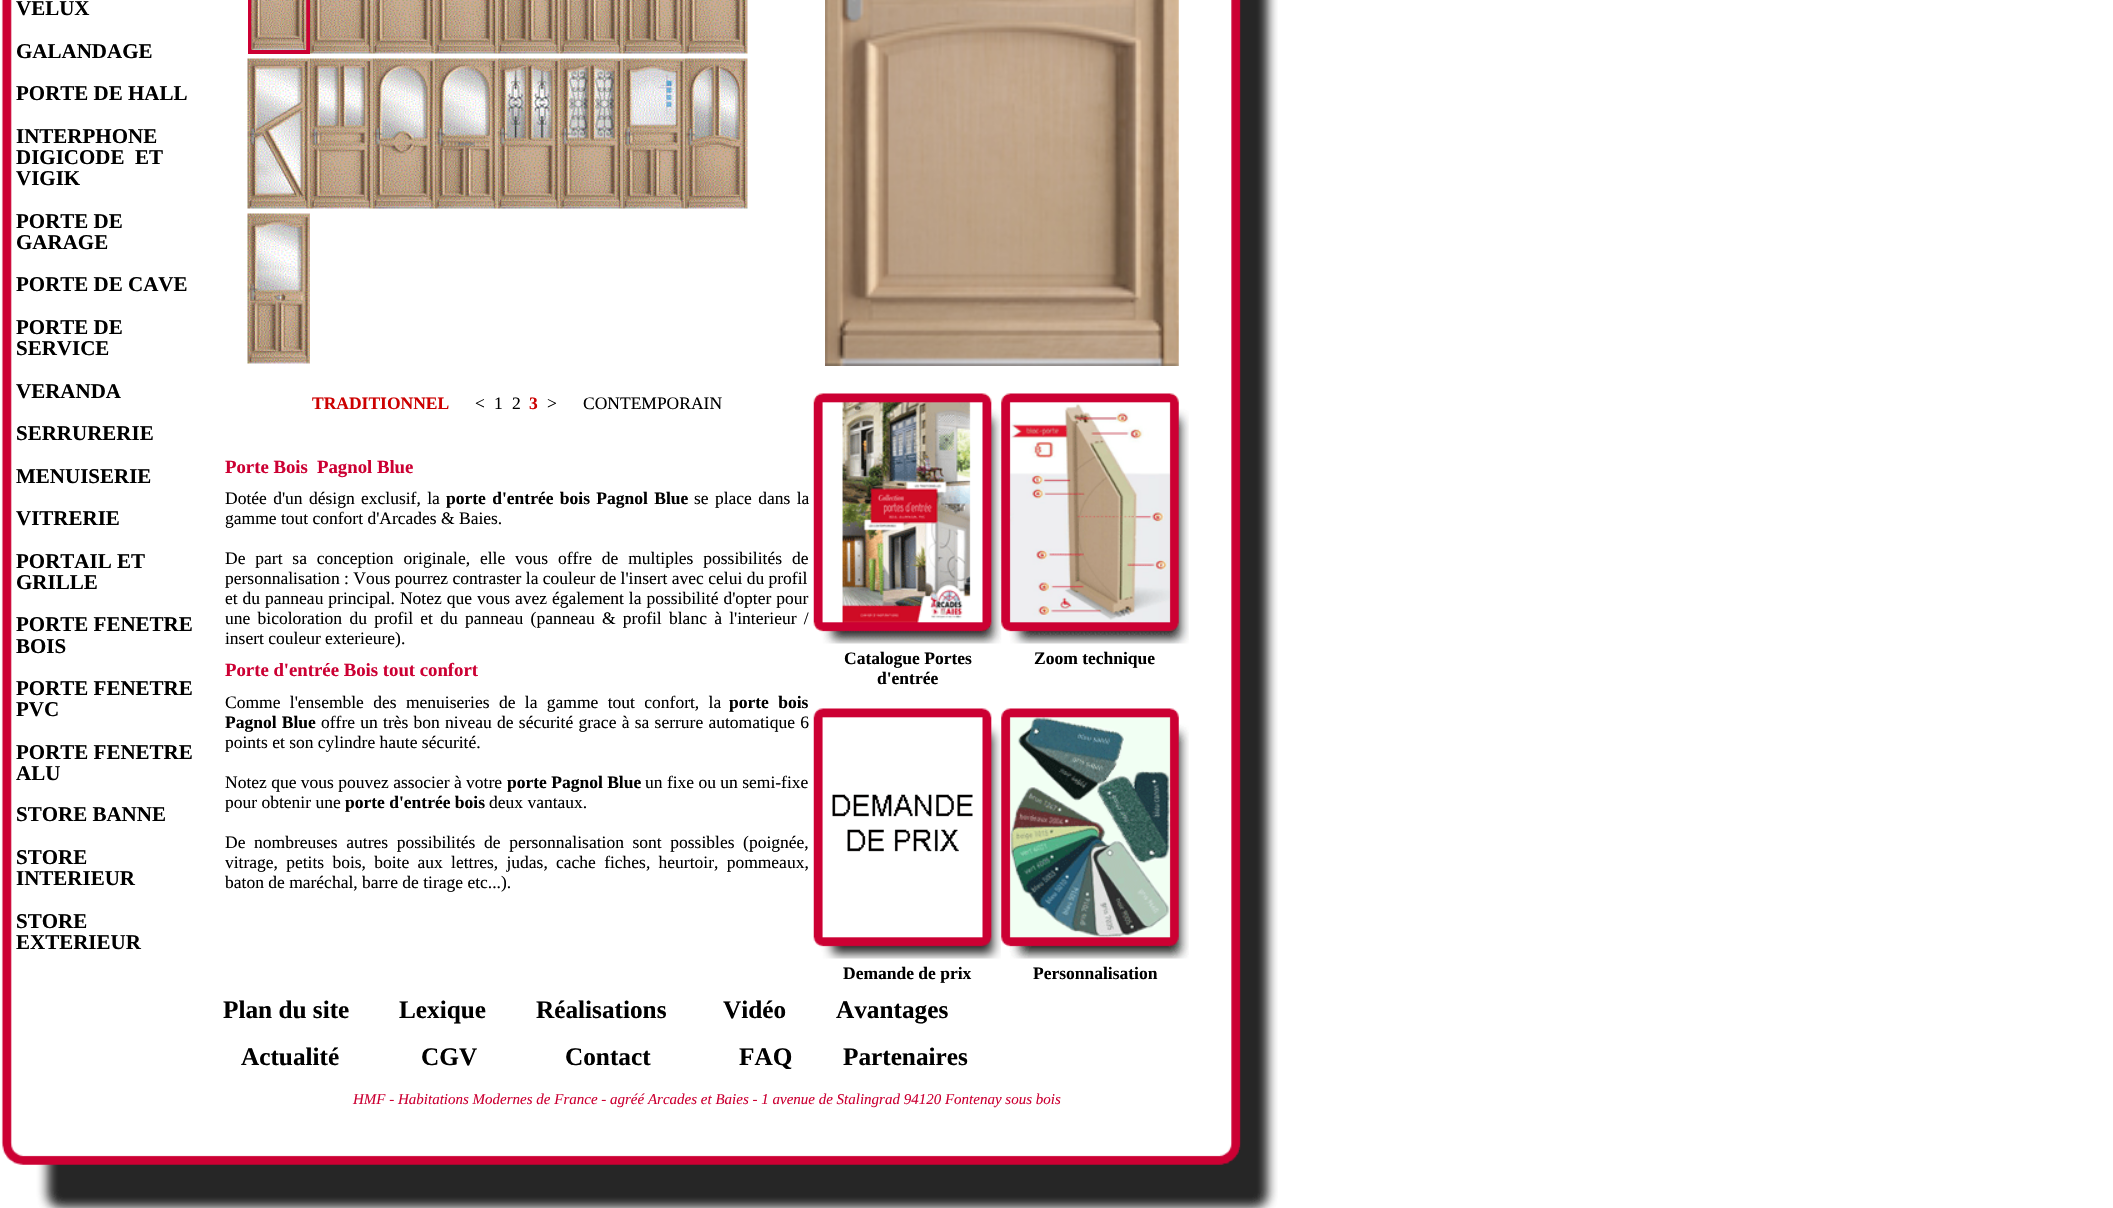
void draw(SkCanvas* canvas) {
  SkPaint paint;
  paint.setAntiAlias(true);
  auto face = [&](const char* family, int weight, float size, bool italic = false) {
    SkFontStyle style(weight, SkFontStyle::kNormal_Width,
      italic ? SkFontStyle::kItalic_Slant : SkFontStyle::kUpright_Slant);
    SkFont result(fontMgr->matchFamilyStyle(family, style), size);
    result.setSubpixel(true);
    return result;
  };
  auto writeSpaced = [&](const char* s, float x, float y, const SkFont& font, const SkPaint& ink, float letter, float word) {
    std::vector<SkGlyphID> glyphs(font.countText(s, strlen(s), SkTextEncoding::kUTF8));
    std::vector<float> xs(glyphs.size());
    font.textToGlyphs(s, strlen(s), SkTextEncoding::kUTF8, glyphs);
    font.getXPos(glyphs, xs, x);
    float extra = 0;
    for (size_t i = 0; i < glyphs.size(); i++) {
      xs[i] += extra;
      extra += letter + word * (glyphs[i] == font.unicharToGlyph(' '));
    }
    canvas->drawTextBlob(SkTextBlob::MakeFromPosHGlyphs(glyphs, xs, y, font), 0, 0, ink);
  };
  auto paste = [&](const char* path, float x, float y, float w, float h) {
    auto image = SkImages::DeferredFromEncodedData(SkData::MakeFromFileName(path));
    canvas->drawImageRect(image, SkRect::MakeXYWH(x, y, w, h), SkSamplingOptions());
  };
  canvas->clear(0xffffffff);
  paste("img/1.png", 1, 0, 1277, 1208);
  paint.setStroke(true);
  paint.setStrokeWidth(4);
  paint.setColor(0xffcc0033);
  canvas->drawRect(SkRect::MakeXYWH(250, -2, 58, 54), paint);
  paste("img/2.png", 251, 0, 56, 50);
  paste("img/3.png", 310, 0, 63, 54);
  paste("img/4.png", 372, 0, 63, 54);
  paste("img/5.png", 435, 0, 63, 54);
  paste("img/6.png", 497, 0, 63, 54);
  paste("img/7.png", 560, 0, 63, 54);
  paste("img/8.png", 622, 0, 63, 54);
  paste("img/9.png", 685, 0, 63, 54);
  paste("img/10.png", 247, 58, 63, 151);
  paste("img/11.png", 310, 58, 63, 151);
  paste("img/12.png", 372, 58, 63, 151);
  paste("img/13.png", 435, 58, 63, 151);
  paste("img/14.png", 497, 58, 63, 151);
  paste("img/15.png", 560, 58, 63, 151);
  paste("img/16.png", 622, 58, 63, 151);
  paste("img/17.png", 685, 58, 63, 151);
  paste("img/18.png", 247, 213, 63, 151);
  paste("img/19.png", 825, 0, 354, 366);
  paste("img/20.png", 813, 393, 189, 251);
  paste("img/21.png", 1001, 393, 188, 251);
  paste("img/22.png", 813, 708, 188, 251);
  paste("img/23.png", 1001, 708, 188, 251);
  auto f0 = face("Liberation Serif", 700, 21);
  paint.setStroke(false);
  paint.setColor(0xff000000);
  {
    const struct { const char* s; float x, y; } items[] = {
      {"VELUX", 16, 15},
      {"GALANDAGE", 16, 58},
      {"PORTE DE HALL", 16, 100},
      {"INTERPHONE", 16, 143},
      {"DIGICODE  ET", 16, 164},
      {"VIGIK", 16, 185},
      {"PORTE DE", 16, 228},
      {"GARAGE", 16, 249},
      {"PORTE DE CAVE", 16, 291},
      {"PORTE DE", 16, 334},
      {"SERVICE", 16, 355},
      {"VERANDA", 16, 398},
      {"SERRURERIE", 16, 440},
      {"MENUISERIE", 16, 483},
      {"VITRERIE", 16, 525},
      {"PORTAIL ET", 16, 568},
      {"GRILLE", 16, 589},
      {"PORTE FENETRE", 16, 631},
      {"BOIS", 16, 653},
      {"PORTE FENETRE", 16, 695},
      {"PVC", 16, 716},
      {"PORTE FENETRE", 16, 759},
      {"ALU", 16, 780},
      {"STORE BANNE", 16, 821},
      {"STORE", 16, 864},
      {"INTERIEUR", 16, 885},
      {"STORE", 16, 928},
      {"EXTERIEUR", 16, 949},
    };
    for (auto [s, x, y] : items) {
      canvas->drawString(s, x, y, f0, paint);
    }
  }
  auto f1 = face("Liberation Serif", 700, 17.5f);
  paint.setColor(0xffcc0000);
  canvas->drawString("TRADITIONNEL", 312, 409, f1, paint);
  auto f2 = face("Liberation Serif", 400, 17.5f);
  paint.setColor(0xff000000);
  {
    const struct { const char* s; float x, y; } items[] = {
      {"<", 475, 409},
      {"1", 494, 409},
      {"2", 512, 409},
    };
    for (auto [s, x, y] : items) {
      canvas->drawString(s, x, y, f2, paint);
    }
  }
  paint.setColor(0xffcc0000);
  canvas->drawString("3", 529, 409, f1, paint);
  paint.setColor(0xff000000);
  canvas->drawString(">", 547, 409, f2, paint);
  canvas->drawString("CONTEMPORAIN", 583, 409, f2, paint);
  auto f3 = face("Liberation Serif", 700, 18.75f);
  paint.setColor(0xffcc0033);
  canvas->drawString("Porte Bois", 225, 473, f3, paint);
  canvas->drawString("Pagnol Blue", 317, 473, f3, paint);
  paint.setColor(0xff000000);
  writeSpaced("Dotée d'un désign exclusif, la", 225, 504, f2, paint, 0, 2);
  writeSpaced("porte d'entrée bois Pagnol Blue", 446, 504, f1, paint, 0, 2);
  writeSpaced("se place dans la", 694, 504, f2, paint, 0, 2);
  canvas->drawString("gamme tout confort d'Arcades & Baies.", 225, 524, f2, paint);
  writeSpaced("De part sa conception originale, elle vous offre de multiples possibilités de", 225, 564, f2, paint, 0, 5.5f);
  canvas->drawString("personnalisation : Vous pourrez contraster la couleur de l'insert avec celui du profil", 225, 584, f2, paint);
  writeSpaced("et du panneau principal. Notez que vous avez également la possibilité d'opter pour", 225, 604, f2, paint, 0, 0.6f);
  writeSpaced("une bicoloration du profil et du panneau (panneau & profil blanc à l'interieur /", 225, 624, f2, paint, 0, 2.9f);
  canvas->drawString("insert couleur exterieure).", 225, 644, f2, paint);
  paint.setColor(0xffcc0033);
  canvas->drawString("Porte d'entrée Bois tout confort", 225, 676, f3, paint);
  paint.setColor(0xff000000);
  writeSpaced("Comme l'ensemble des menuiseries de la gamme tout confort, la", 225, 708, f2, paint, 0, 5);
  writeSpaced("porte bois", 729, 708, f1, paint, 0, 5);
  writeSpaced("Pagnol Blue", 225, 728, f1, paint, 0, 0.9f);
  writeSpaced("offre un très bon niveau de sécurité grace à sa serrure automatique 6", 321, 728, f2, paint, 0, 0.9f);
  canvas->drawString("points et son cylindre haute sécurité.", 225, 748, f2, paint);
  canvas->drawString("Notez que vous pouvez associer à votre", 225, 788, f2, paint);
  canvas->drawString("porte Pagnol Blue", 507, 788, f1, paint);
  canvas->drawString("un fixe ou un semi-fixe", 645, 788, f2, paint);
  canvas->drawString("pour obtenir une", 225, 808, f2, paint);
  canvas->drawString("porte d'entrée bois", 345, 808, f1, paint);
  canvas->drawString("deux vantaux.", 489, 808, f2, paint);
  writeSpaced("De nombreuses autres possibilités de personnalisation sont possibles (poignée,", 225, 848, f2, paint, 0, 4.25f);
  writeSpaced("vitrage, petits bois, boite aux lettres, judas, cache fiches, heurtoir, pommeaux,", 225, 868, f2, paint, 0, 3.9f);
  canvas->drawString("baton de maréchal, barre de tirage etc...).", 225, 888, f2, paint);
  {
    const struct { const char* s; float x, y; } items[] = {
      {"Catalogue Portes", 844, 664},
      {"d'entrée", 877, 684},
      {"Zoom technique", 1034, 664},
      {"Demande de prix", 843, 979},
      {"Personnalisation", 1033, 979},
    };
    for (auto [s, x, y] : items) {
      canvas->drawString(s, x, y, f1, paint);
    }
  }
  auto f4 = face("Liberation Serif", 700, 25.25f);
  {
    const struct { const char* s; float x, y; } items[] = {
      {"Plan du site", 223, 1018},
      {"Lexique", 399, 1018},
      {"Réalisations", 536, 1018},
      {"Vidéo", 723, 1018},
      {"Avantages", 836, 1018},
      {"Actualité", 241, 1065},
      {"CGV", 421, 1065},
      {"Contact", 565, 1065},
      {"FAQ", 739, 1065},
      {"Partenaires", 843, 1065},
    };
    for (auto [s, x, y] : items) {
      canvas->drawString(s, x, y, f4, paint);
    }
  }
  auto f5 = face("Liberation Serif", 400, 15, true);
  paint.setColor(0xffcc0033);
  canvas->drawString("HMF - Habitations Modernes de France - agréé Arcades et Baies - 1 avenue de Stalingrad 94120 Fontenay sous bois", 353, 1104, f5, paint);
}
